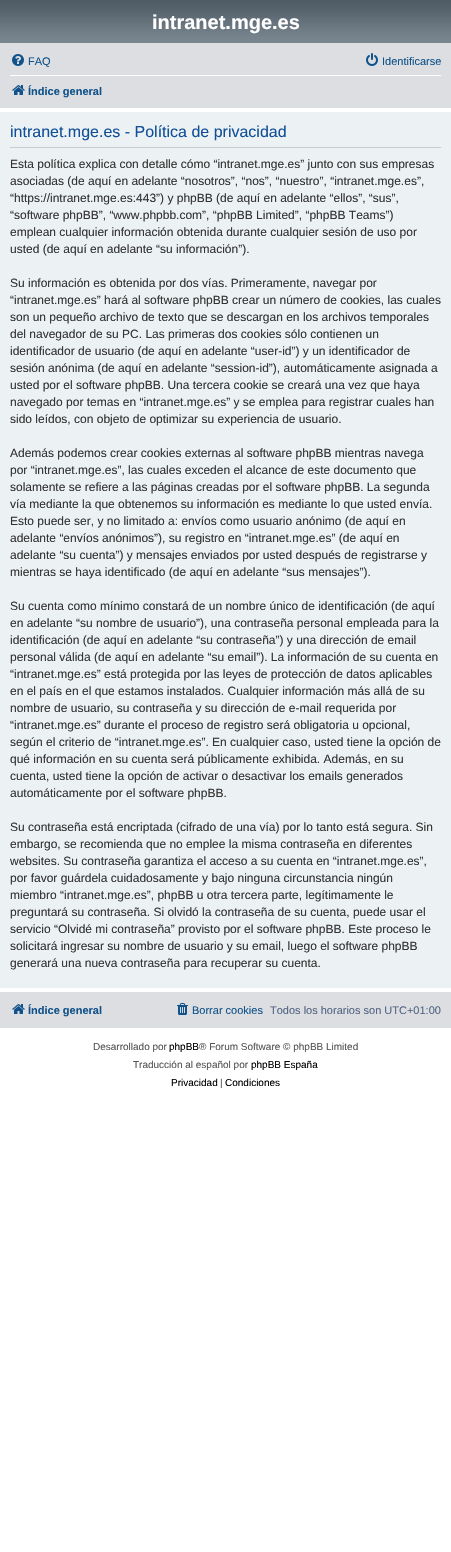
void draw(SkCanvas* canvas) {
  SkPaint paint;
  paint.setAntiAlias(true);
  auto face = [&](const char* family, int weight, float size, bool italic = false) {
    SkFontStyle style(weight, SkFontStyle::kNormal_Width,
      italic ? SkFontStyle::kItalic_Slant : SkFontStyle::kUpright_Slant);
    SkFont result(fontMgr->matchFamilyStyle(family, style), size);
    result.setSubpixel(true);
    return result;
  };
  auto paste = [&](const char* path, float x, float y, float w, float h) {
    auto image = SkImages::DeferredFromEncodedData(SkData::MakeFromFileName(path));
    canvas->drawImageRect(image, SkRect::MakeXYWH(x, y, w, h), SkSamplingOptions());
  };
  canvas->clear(0xffffffff);
  {
    const SkColor colors[] = {0xff6e777f, 0xff505c65, 0xff56626b, 0xff737f88, 0xff7c8891};
    const float stops[] = {0, 0.01f, 0.2f, 0.75f, 1};
    const SkPoint ends[] = {{226, 0}, {226, 44}};
    paint.setShader(SkGradientShader::MakeLinear(ends, colors, stops, 5, SkTileMode::kClamp));
    paint.setAlpha(255);
  }
  canvas->drawRect(SkRect::MakeXYWH(0, 0, 451, 43), paint);
  paint.setShader(nullptr);
  paint.setColor(0xffdcdee2);
  canvas->drawRect(SkRect::MakeXYWH(0, 43, 451, 65), paint);
  paste("img/1.png", 12, 54, 12, 12);
  paste("img/2.png", 366, 53, 12, 13);
  paint.setColor(0xffffffff);
  canvas->drawRect(SkRect::MakeXYWH(10, 75, 431, 1), paint);
  paste("img/3.png", 12, 85, 13, 10);
  {
    const struct { float x, y, w, h; SkColor color; } items[] = {
      {0, 112, 451, 876, 0xffecf1f3},
      {10, 147, 431, 1, 0xffcccccc},
      {0, 992, 451, 36, 0xffdcdee2},
    };
    for (auto [x, y, w, h, color] : items) {
      paint.setColor(color);
      canvas->drawRect(SkRect::MakeXYWH(x, y, w, h), paint);
    }
  }
  paste("img/3.png", 12, 1004, 13, 10);
  paste("img/4.png", 177, 1003, 11, 12);
  auto f0 = face("Liberation Sans", 700, 20);
  paint.setColor(0xffffffff);
  canvas->drawString("intranet.mge.es", 152, 29, f0, paint);
  auto f1 = face("Liberation Sans", 400, 11);
  paint.setColor(0xff105289);
  canvas->drawString("FAQ", 28, 65, f1, paint);
  canvas->drawString("Identificarse", 382, 65, f1, paint);
  auto f2 = face("Liberation Sans", 700, 11);
  canvas->drawString("Índice general", 28, 95, f2, paint);
  auto f3 = face("Liberation Sans", 400, 16);
  paint.setColor(0xff115098);
  canvas->drawString("intranet.mge.es - Política de privacidad", 10, 137, f3, paint);
  auto f4 = face("Liberation Sans", 400, 12);
  paint.setColor(0xff333333);
  {
    const struct { const char* s; float x, y; } items[] = {
      {"Esta política explica con detalle cómo “intranet.mge.es” junto con sus empresas", 10, 168},
      {"asociadas (de aquí en adelante “nosotros”, “nos”, “nuestro”, “intranet.mge.es”,", 10, 185},
      {"“https://intranet.mge.es:443”) y phpBB (de aquí en adelante “ellos”, “sus”,", 10, 202},
      {"“software phpBB”, “www.phpbb.com”, “phpBB Limited”, “phpBB Teams”)", 10, 219},
      {"emplean cualquier información obtenida durante cualquier sesión de uso por", 10, 236},
      {"usted (de aquí en adelante “su información”).", 10, 253},
      {"Su información es obtenida por dos vías. Primeramente, navegar por", 10, 287},
      {"“intranet.mge.es” hará al software phpBB crear un número de cookies, las cuales", 10, 304},
      {"son un pequeño archivo de texto que se descargan en los archivos temporales", 10, 321},
      {"del navegador de su PC. Las primeras dos cookies sólo contienen un", 10, 338},
      {"identificador de usuario (de aquí en adelante “user-id”) y un identificador de", 10, 355},
      {"sesión anónima (de aquí en adelante “session-id”), automáticamente asignada a", 10, 372},
      {"usted por el software phpBB. Una tercera cookie se creará una vez que haya", 10, 389},
      {"navegado por temas en “intranet.mge.es” y se emplea para registrar cuales han", 10, 406},
      {"sido leídos, con objeto de optimizar su experiencia de usuario.", 10, 423},
      {"Además podemos crear cookies externas al software phpBB mientras navega", 10, 457},
      {"por “intranet.mge.es”, las cuales exceden el alcance de este documento que", 10, 474},
      {"solamente se refiere a las páginas creadas por el software phpBB. La segunda", 10, 491},
      {"vía mediante la que obtenemos su información es mediante lo que usted envía.", 10, 508},
      {"Esto puede ser, y no limitado a: envíos como usuario anónimo (de aquí en", 10, 525},
      {"adelante “envíos anónimos”), su registro en “intranet.mge.es” (de aquí en", 10, 542},
      {"adelante “su cuenta”) y mensajes enviados por usted después de registrarse y", 10, 559},
      {"mientras se haya identificado (de aquí en adelante “sus mensajes”).", 10, 576},
      {"Su cuenta como mínimo constará de un nombre único de identificación (de aquí", 10, 610},
      {"en adelante “su nombre de usuario”), una contraseña personal empleada para la", 10, 627},
      {"identificación (de aquí en adelante “su contraseña”) y una dirección de email", 10, 644},
      {"personal válida (de aquí en adelante “su email”). La información de su cuenta en", 10, 661},
      {"“intranet.mge.es” está protegida por las leyes de protección de datos aplicables", 10, 678},
      {"en el país en el que estamos instalados. Cualquier información más allá de su", 10, 695},
      {"nombre de usuario, su contraseña y su dirección de e-mail requerida por", 10, 712},
      {"“intranet.mge.es” durante el proceso de registro será obligatoria u opcional,", 10, 729},
      {"según el criterio de “intranet.mge.es”. En cualquier caso, usted tiene la opción de", 10, 746},
      {"qué información en su cuenta será públicamente exhibida. Además, en su", 10, 763},
      {"cuenta, usted tiene la opción de activar o desactivar los emails generados", 10, 780},
      {"automáticamente por el software phpBB.", 10, 797},
      {"Su contraseña está encriptada (cifrado de una vía) por lo tanto está segura. Sin", 10, 831},
      {"embargo, se recomienda que no emplee la misma contraseña en diferentes", 10, 848},
      {"websites. Su contraseña garantiza el acceso a su cuenta en “intranet.mge.es”,", 10, 865},
      {"por favor guárdela cuidadosamente y bajo ninguna circunstancia ningún", 10, 882},
      {"miembro “intranet.mge.es”, phpBB u otra tercera parte, legítimamente le", 10, 899},
      {"preguntará su contraseña. Si olvidó la contraseña de su cuenta, puede usar el", 10, 916},
      {"servicio “Olvidé mi contraseña” provisto por el software phpBB. Este proceso le", 10, 933},
      {"solicitará ingresar su nombre de usuario y su email, luego el software phpBB", 10, 950},
      {"generará una nueva contraseña para recuperar su cuenta.", 10, 967},
    };
    for (auto [s, x, y] : items) {
      canvas->drawString(s, x, y, f4, paint);
    }
  }
  paint.setColor(0xff105289);
  canvas->drawString("Índice general", 28, 1014, f2, paint);
  canvas->drawString("Borrar cookies", 192, 1014, f1, paint);
  paint.setColor(0xff536482);
  canvas->drawString("Todos los horarios son UTC+01:00", 270, 1014, f1, paint);
  auto f5 = face("Liberation Sans", 400, 10);
  paint.setColor(0xff555555);
  canvas->drawString("Desarrollado por", 93, 1050, f5, paint);
  paint.setColor(0xff000000);
  canvas->drawString("phpBB", 169, 1050, f5, paint);
  paint.setColor(0xff555555);
  canvas->drawString("® Forum Software © phpBB Limited", 199, 1050, f5, paint);
  canvas->drawString("Traducción al español por", 133, 1068, f5, paint);
  paint.setColor(0xff000000);
  canvas->drawString("phpBB España", 251, 1068, f5, paint);
  canvas->drawString("Privacidad", 171, 1086, f5, paint);
  paint.setColor(0xff555555);
  canvas->drawString("|", 220, 1086, f5, paint);
  paint.setColor(0xff000000);
  canvas->drawString("Condiciones", 225, 1086, f5, paint);
}
